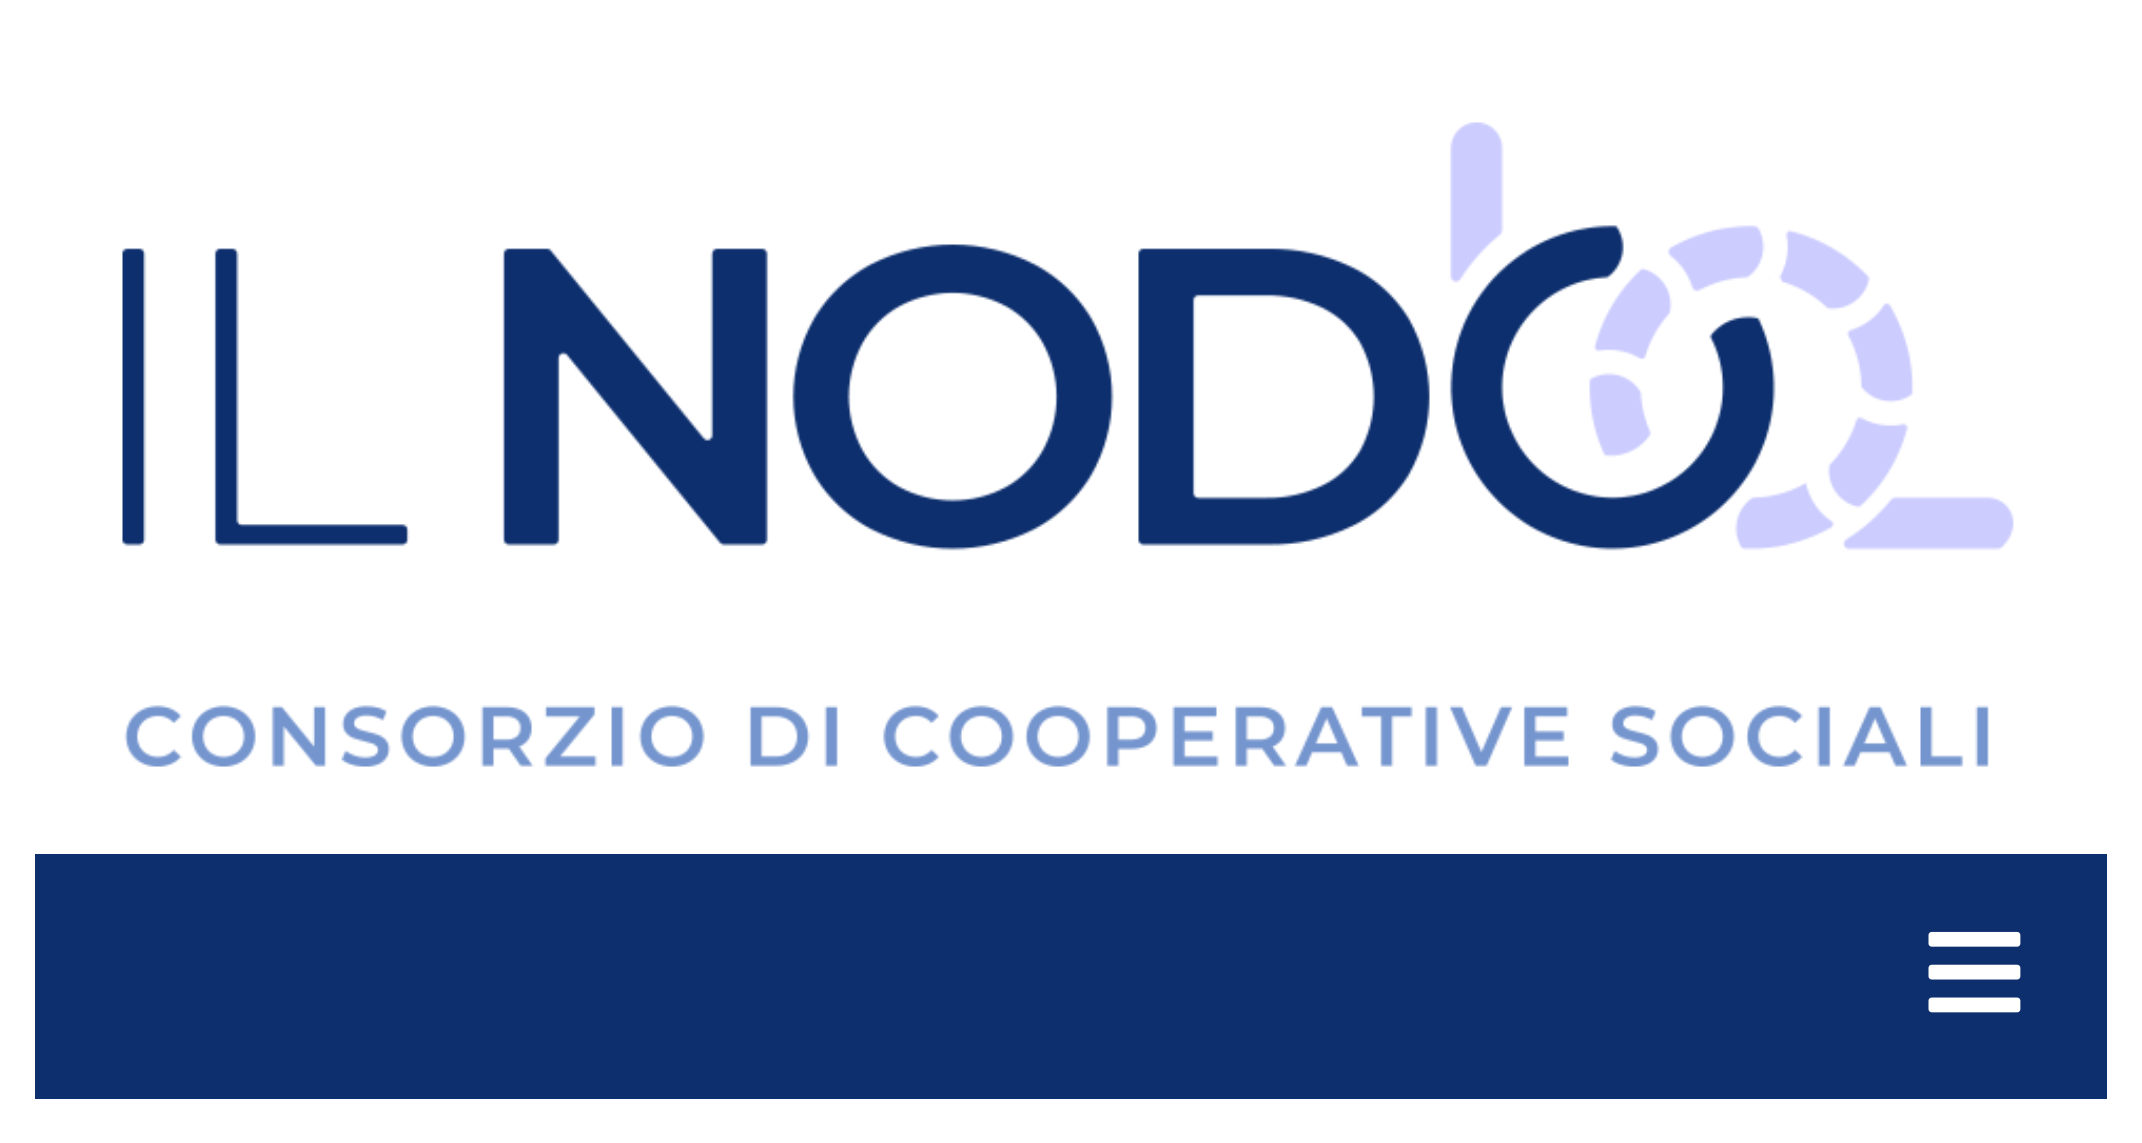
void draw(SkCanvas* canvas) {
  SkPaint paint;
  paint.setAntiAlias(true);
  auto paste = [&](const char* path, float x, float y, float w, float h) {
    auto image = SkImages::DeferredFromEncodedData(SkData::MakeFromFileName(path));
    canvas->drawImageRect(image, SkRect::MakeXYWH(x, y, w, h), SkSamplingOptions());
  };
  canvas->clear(0xffffffff);
  paste("img/1.png", 122, 122, 1892, 645);
  paint.setColor(0xff0d2f6e);
  canvas->drawRect(SkRect::MakeXYWH(35, 854, 2072, 245), paint);
  paste("img/2.png", 1928, 931, 93, 82);
}
